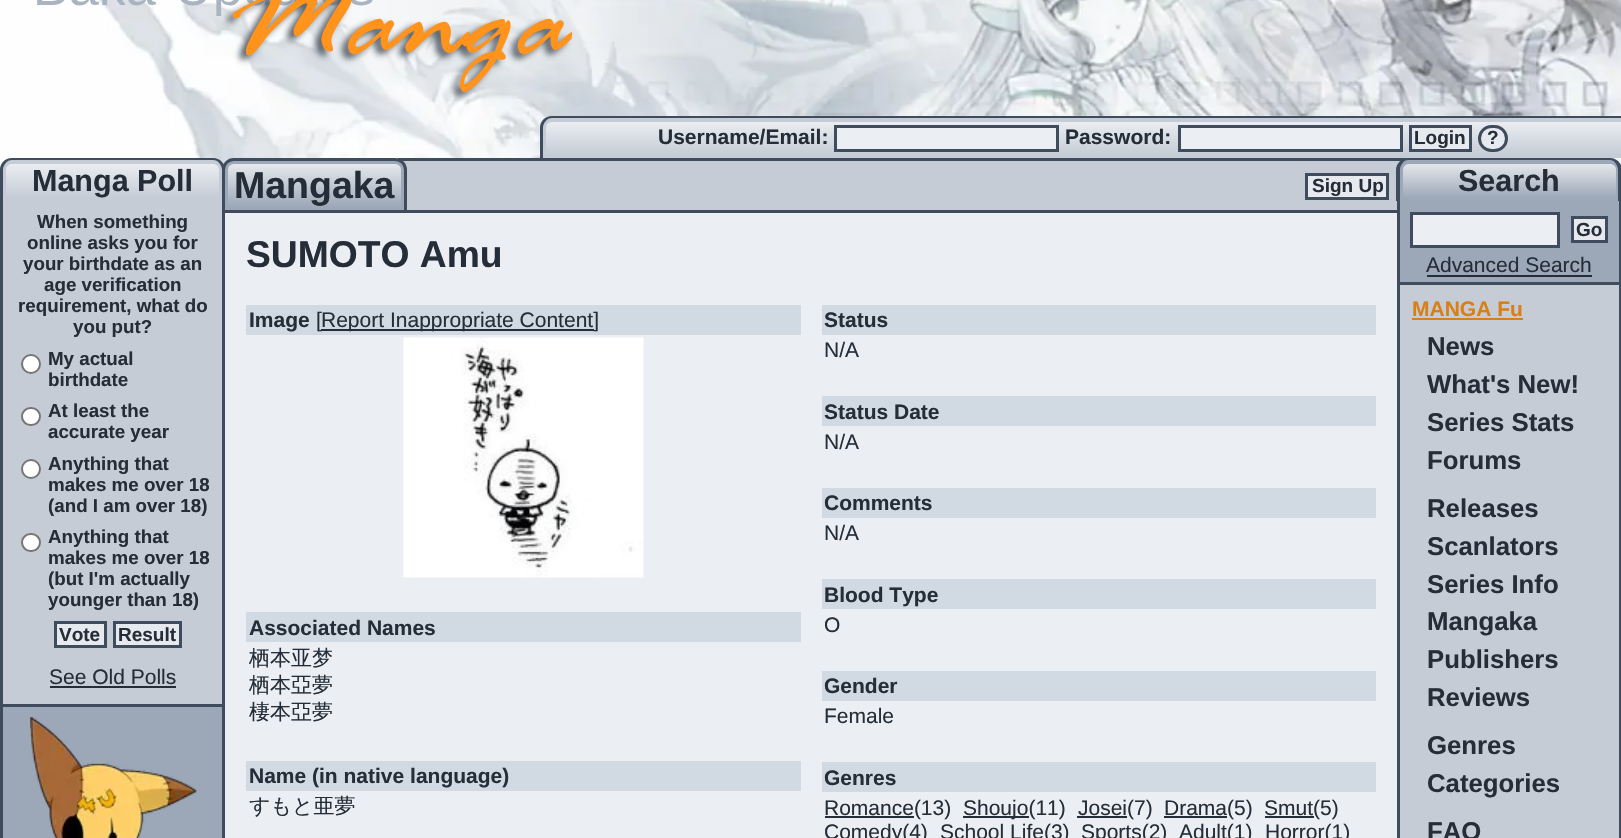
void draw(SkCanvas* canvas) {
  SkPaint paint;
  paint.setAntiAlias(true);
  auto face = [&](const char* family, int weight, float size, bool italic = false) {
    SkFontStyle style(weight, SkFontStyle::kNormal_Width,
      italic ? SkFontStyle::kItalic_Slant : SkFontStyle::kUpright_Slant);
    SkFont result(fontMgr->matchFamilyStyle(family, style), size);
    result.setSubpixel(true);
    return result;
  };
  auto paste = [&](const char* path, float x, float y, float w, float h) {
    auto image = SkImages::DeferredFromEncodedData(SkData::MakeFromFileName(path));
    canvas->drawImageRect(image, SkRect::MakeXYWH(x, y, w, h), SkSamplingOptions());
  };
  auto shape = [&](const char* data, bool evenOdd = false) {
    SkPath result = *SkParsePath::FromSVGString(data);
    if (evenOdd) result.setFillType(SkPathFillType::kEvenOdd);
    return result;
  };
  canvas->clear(0xffc5ccd6);
  paste("img/1.png", 0, 0, 1621, 170);
  paste("img/2.png", 37, 0, 336, 16);
  paste("img/3.png", 222, 0, 351, 102);
  paint.setColor(0xffc5ccd6);
  canvas->drawPath(shape("M552 116H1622V158H540V128C540 121.5 545.5 116 552 116Z"), paint);
  paint.setColor(0xff3e4c5e);
  canvas->drawPath(shape("M552 116H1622V158H540V128C540 121 545 116 552 116ZM552 118H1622V158H543V128C543 123 547 118 552 118Z", true), paint);
  {
    const SkColor colors[] = {0xffebeef2, 0xffc5ccd6};
    const float stops[] = {0, 1};
    const SkPoint ends[] = {{1084, 121}, {1084, 155}};
    paint.setShader(SkGradientShader::MakeLinear(ends, colors, stops, 2, SkTileMode::kClamp));
    paint.setAlpha(255);
  }
  canvas->drawPath(shape("M552 122H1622V155H546V128C546 124.5 548.5 122 552 122Z"), paint);
  paint.setShader(nullptr);
  paint.setColor(0xffebeef2);
  canvas->drawRect(SkRect::MakeXYWH(835.5f, 126.5f, 222, 24), paint);
  paint.setStroke(true);
  paint.setStrokeWidth(3);
  paint.setColor(0xff3e4c5e);
  canvas->drawRect(SkRect::MakeXYWH(835.5f, 126.5f, 222, 24), paint);
  paint.setStroke(false);
  paint.setColor(0xffebeef2);
  canvas->drawRect(SkRect::MakeXYWH(1179.5f, 126.5f, 222, 24), paint);
  paint.setStroke(true);
  paint.setColor(0xff3e4c5e);
  canvas->drawRect(SkRect::MakeXYWH(1179.5f, 126.5f, 222, 24), paint);
  paint.setStroke(false);
  paint.setColor(0xffe6e9ed);
  canvas->drawRect(SkRect::MakeXYWH(1410.5f, 126.5f, 60, 24), paint);
  paint.setStroke(true);
  paint.setColor(0xff3e4c5e);
  canvas->drawRect(SkRect::MakeXYWH(1410.5f, 126.5f, 60, 24), paint);
  paint.setStroke(false);
  paint.setColor(0xffe6e9ed);
  canvas->drawRoundRect(SkRect::MakeXYWH(1479.5f, 126.5f, 27, 24), 12, 12, paint);
  paint.setStroke(true);
  paint.setColor(0xff3e4c5e);
  canvas->drawRoundRect(SkRect::MakeXYWH(1479.5f, 126.5f, 27, 24), 12, 12, paint);
  paint.setStroke(false);
  paint.setColor(0xffc5ccd6);
  canvas->drawPath(shape("M12 158H213C219.5 158 225 163.5 225 170V201H0V170C0 163.5 5.5 158 12 158Z"), paint);
  paint.setColor(0xff3e4c5e);
  canvas->drawPath(shape("M12 158H213C220 158 225 163 225 170V201H0V170C0 163 5 158 12 158ZM12 160H213C218 160 222 165 222 170V201H3V170C3 165 7 160 12 160Z", true), paint);
  {
    const SkColor colors[] = {0xffebeef2, 0xffc5ccd6};
    const float stops[] = {0, 1};
    const SkPoint ends[] = {{113, 163}, {113, 198}};
    paint.setShader(SkGradientShader::MakeLinear(ends, colors, stops, 2, SkTileMode::kClamp));
    paint.setAlpha(255);
  }
  canvas->drawPath(shape("M12 164H213C216.5 164 219 166.5 219 170V198H6V170C6 166.5 8.5 164 12 164Z"), paint);
  paint.setShader(nullptr);
  paint.setColor(0xff3e4c5e);
  canvas->drawRect(SkRect::MakeXYWH(222, 213, 3, 491), paint);
  canvas->drawRect(SkRect::MakeXYWH(0, 201, 3, 503), paint);
  paint.setColor(0xffffffff);
  canvas->drawCircle(31, 364, 9, paint);
  paint.setStroke(true);
  paint.setStrokeWidth(2);
  paint.setColor(0xff767676);
  canvas->drawCircle(31, 364, 9, paint);
  paint.setStroke(false);
  paint.setColor(0xffffffff);
  canvas->drawRoundRect(SkRect::MakeXYWH(22, 408, 18, 17), 8.5f, 8.5f, paint);
  paint.setStroke(true);
  paint.setColor(0xff767676);
  canvas->drawRoundRect(SkRect::MakeXYWH(22, 408, 18, 17), 8.5f, 8.5f, paint);
  paint.setStroke(false);
  paint.setColor(0xffffffff);
  canvas->drawCircle(31, 469, 9, paint);
  paint.setStroke(true);
  paint.setColor(0xff767676);
  canvas->drawCircle(31, 469, 9, paint);
  paint.setStroke(false);
  paint.setColor(0xffffffff);
  canvas->drawRoundRect(SkRect::MakeXYWH(22, 534, 18, 17), 8.5f, 8.5f, paint);
  paint.setStroke(true);
  paint.setColor(0xff767676);
  canvas->drawRoundRect(SkRect::MakeXYWH(22, 534, 18, 17), 8.5f, 8.5f, paint);
  paint.setStroke(false);
  paint.setColor(0xffe6e9ed);
  canvas->drawRect(SkRect::MakeXYWH(55.5f, 622.5f, 50, 24), paint);
  paint.setStroke(true);
  paint.setStrokeWidth(3);
  paint.setColor(0xff3e4c5e);
  canvas->drawRect(SkRect::MakeXYWH(55.5f, 622.5f, 50, 24), paint);
  paint.setStroke(false);
  paint.setColor(0xffe6e9ed);
  canvas->drawRect(SkRect::MakeXYWH(114.5f, 622.5f, 66, 24), paint);
  paint.setStroke(true);
  paint.setColor(0xff3e4c5e);
  canvas->drawRect(SkRect::MakeXYWH(114.5f, 622.5f, 66, 24), paint);
  paint.setStroke(false);
  {
    const struct { float x, y, w, h; SkColor color; } items[] = {
      {50, 686, 126, 2, 0xff252e38},
      {3, 707, 219, 131, 0xff9ca8b8},
      {0, 704, 225, 3, 0xff3e4c5e},
      {222, 704, 3, 134, 0xff3e4c5e},
      {0, 704, 3, 134, 0xff3e4c5e},
    };
    for (auto [x, y, w, h, color] : items) {
      paint.setColor(color);
      canvas->drawRect(SkRect::MakeXYWH(x, y, w, h), paint);
    }
  }
  paste("img/4.png", 30, 717, 167, 121);
  {
    const struct { float x, y, w, h; SkColor color; } items[] = {
      {225, 213, 1172, 625, 0xffebeef2},
      {402, 161, 999, 9, 0xffc5ccd6},
      {398, 158, 1009, 3, 0xff3e4c5e},
    };
    for (auto [x, y, w, h, color] : items) {
      paint.setColor(color);
      canvas->drawRect(SkRect::MakeXYWH(x, y, w, h), paint);
    }
  }
  paint.setColor(0xff9ca8b8);
  canvas->drawPath(shape("M234 159.5H395C401 159.5 405.5 164 405.5 170V211.5H223.5V170C223.5 164 228 159.5 234 159.5Z"), paint);
  paint.setStroke(true);
  paint.setColor(0xff3e4c5e);
  canvas->drawPath(shape("M234 159.5H395C401 159.5 405.5 164 405.5 170V211.5H223.5V170C223.5 164 228 159.5 234 159.5Z"), paint);
  paint.setStroke(false);
  {
    const SkColor colors[] = {0xffe6e9ed, 0xff9ca8b8};
    const float stops[] = {0, 1};
    const SkPoint ends[] = {{314, 164}, {314, 207}};
    paint.setShader(SkGradientShader::MakeLinear(ends, colors, stops, 2, SkTileMode::kClamp));
    paint.setAlpha(255);
  }
  canvas->drawPath(shape("M234 164H395C398.5 164 401 166.5 401 170V207H228V170C228 166.5 230.5 164 234 164Z"), paint);
  paint.setShader(nullptr);
  paint.setColor(0xff3e4c5e);
  canvas->drawRect(SkRect::MakeXYWH(407, 210, 990, 3), paint);
  paint.setColor(0xffe6e9ed);
  canvas->drawRect(SkRect::MakeXYWH(1306.5f, 174.5f, 81, 24), paint);
  paint.setStroke(true);
  paint.setColor(0xff3e4c5e);
  canvas->drawRect(SkRect::MakeXYWH(1306.5f, 174.5f, 81, 24), paint);
  paint.setStroke(false);
  {
    const struct { float x, y, w, h; SkColor color; } items[] = {
      {246, 305, 555, 30, 0xffd1d9e3},
      {321, 329, 63, 2, 0xff252e38},
      {384, 329, 210, 2, 0xff252e38},
    };
    for (auto [x, y, w, h, color] : items) {
      paint.setColor(color);
      canvas->drawRect(SkRect::MakeXYWH(x, y, w, h), paint);
    }
  }
  paste("img/5.png", 403, 337, 241, 241);
  {
    const struct { float x, y, w, h; SkColor color; } items[] = {
      {246, 612, 555, 30, 0xffd1d9e3},
      {246, 761, 555, 30, 0xffd1d9e3},
      {822, 305, 554, 30, 0xffd1d9e3},
      {822, 396, 554, 30, 0xffd1d9e3},
      {822, 488, 554, 30, 0xffd1d9e3},
      {822, 579, 554, 30, 0xffd1d9e3},
      {822, 671, 554, 30, 0xffd1d9e3},
      {822, 762, 554, 30, 0xffd1d9e3},
      {825, 816, 89, 2, 0xff252e38},
      {963, 816, 66, 2, 0xff252e38},
      {1077, 816, 50, 2, 0xff252e38},
      {1164, 816, 63, 2, 0xff252e38},
      {1265, 816, 49, 2, 0xff252e38},
    };
    for (auto [x, y, w, h, color] : items) {
      paint.setColor(color);
      canvas->drawRect(SkRect::MakeXYWH(x, y, w, h), paint);
    }
  }
  paint.setColor(0xff9ca8b8);
  canvas->drawPath(shape("M1409 158H1610C1616.5 158 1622 163.5 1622 170V201H1397V170C1397 163.5 1402.5 158 1409 158Z"), paint);
  paint.setColor(0xff3e4c5e);
  canvas->drawPath(shape("M1408 158H1610C1616 158 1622 163 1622 170V201H1396V170C1396 163 1402 158 1408 158ZM1408 160H1610C1614 160 1618 165 1618 170V201H1400V170C1400 165 1404 160 1408 160Z", true), paint);
  {
    const SkColor colors[] = {0xffe6e9ed, 0xff9ca8b8};
    const float stops[] = {0, 1};
    const SkPoint ends[] = {{1509, 163}, {1509, 198}};
    paint.setShader(SkGradientShader::MakeLinear(ends, colors, stops, 2, SkTileMode::kClamp));
    paint.setAlpha(255);
  }
  canvas->drawPath(shape("M1409 164H1610C1613.5 164 1616 166.5 1616 170V198H1403V170C1403 166.5 1405.5 164 1409 164Z"), paint);
  paint.setShader(nullptr);
  {
    const struct { float x, y, w, h; SkColor color; } items[] = {
      {1400, 201, 219, 81, 0xff9ca8b8},
      {1619, 201, 2, 637, 0xff3e4c5e},
      {1397, 282, 224, 3, 0xff3e4c5e},
      {1397, 201, 3, 84, 0xff3e4c5e},
    };
    for (auto [x, y, w, h, color] : items) {
      paint.setColor(color);
      canvas->drawRect(SkRect::MakeXYWH(x, y, w, h), paint);
    }
  }
  paint.setColor(0xffebeef2);
  canvas->drawRect(SkRect::MakeXYWH(1411.5f, 213.5f, 147, 33), paint);
  paint.setStroke(true);
  paint.setColor(0xff3e4c5e);
  canvas->drawRect(SkRect::MakeXYWH(1411.5f, 213.5f, 147, 33), paint);
  paint.setStroke(false);
  paint.setColor(0xffe6e9ed);
  canvas->drawRect(SkRect::MakeXYWH(1572.5f, 217.5f, 34, 24), paint);
  paint.setStroke(true);
  paint.setColor(0xff3e4c5e);
  canvas->drawRect(SkRect::MakeXYWH(1572.5f, 217.5f, 34, 24), paint);
  paint.setStroke(false);
  {
    const struct { float x, y, w, h; SkColor color; } items[] = {
      {1427, 275, 165, 2, 0xff252e38},
      {1397, 285, 3, 553, 0xff3e4c5e},
      {1412, 318, 111, 2, 0xffd97f15},
    };
    for (auto [x, y, w, h, color] : items) {
      paint.setColor(color);
      canvas->drawRect(SkRect::MakeXYWH(x, y, w, h), paint);
    }
  }
  auto f0 = face("Liberation Sans", 700, 21);
  paint.setColor(0xff252e38);
  canvas->drawString("Username/Email:", 658, 144, f0, paint);
  canvas->drawString("Password:", 1065, 144, f0, paint);
  auto f1 = face("Liberation Sans", 700, 19);
  canvas->drawString("Login", 1414, 144, f1, paint);
  canvas->drawString("?", 1487, 144, f1, paint);
  auto f2 = face("Liberation Sans", 700, 30.5f);
  canvas->drawString("Manga Poll", 32, 191, f2, paint);
  auto f3 = face("Liberation Sans", 700, 18.75f);
  {
    const struct { const char* s; float x, y; } items[] = {
      {"When something", 37, 228},
      {"online asks you for", 27, 249},
      {"your birthdate as an", 23, 270},
      {"age verification", 44, 291},
      {"requirement, what do", 18, 312},
      {"you put?", 73, 333},
      {"My actual", 48, 365},
      {"birthdate", 48, 386},
      {"At least the", 48, 417},
      {"accurate year", 48, 438},
      {"Anything that", 48, 470},
      {"makes me over 18", 48, 491},
      {"(and I am over 18)", 48, 512},
      {"Anything that", 48, 543},
      {"makes me over 18", 48, 564},
      {"(but I'm actually", 48, 585},
      {"younger than 18)", 48, 606},
    };
    for (auto [s, x, y] : items) {
      canvas->drawString(s, x, y, f3, paint);
    }
  }
  canvas->drawString("Vote", 59, 641, f1, paint);
  canvas->drawString("Result", 118, 641, f1, paint);
  auto f4 = face("Liberation Sans", 400, 21);
  canvas->drawString("See Old Polls", 49, 684, f4, paint);
  auto f5 = face("Liberation Sans", 700, 37.5f);
  canvas->drawString("Mangaka", 234, 198, f5, paint);
  canvas->drawString("Sign Up", 1312, 192, f1, paint);
  auto f6 = face("Liberation Sans", 700, 37.25f);
  canvas->drawString("SUMOTO Amu", 246, 267, f6, paint);
  canvas->drawString("Image", 249, 327, f0, paint);
  {
    const struct { const char* s; float x, y; } items[] = {
      {"[", 316, 327},
      {"Report", 321, 327},
      {"Inappropriate Content]", 390, 327},
    };
    for (auto [s, x, y] : items) {
      canvas->drawString(s, x, y, f4, paint);
    }
  }
  canvas->drawString("Associated Names", 249, 635, f0, paint);
  auto f7 = face("WenQuanYi Zen Hei", 500, 21);
  {
    const struct { const char* s; float x, y; } items[] = {
      {"栖本亚梦", 249, 665},
      {"栖本亞夢", 249, 692},
      {"棲本亞夢", 249, 719},
    };
    for (auto [s, x, y] : items) {
      canvas->drawString(s, x, y, f7, paint);
    }
  }
  canvas->drawString("Name (in native language)", 249, 783, f0, paint);
  canvas->drawString("すもと亜夢", 249, 813, f7, paint);
  canvas->drawString("Status", 824, 327, f0, paint);
  canvas->drawString("N/A", 824, 357, f4, paint);
  canvas->drawString("Status Date", 824, 419, f0, paint);
  canvas->drawString("N/A", 824, 449, f4, paint);
  canvas->drawString("Comments", 824, 510, f0, paint);
  canvas->drawString("N/A", 824, 540, f4, paint);
  canvas->drawString("Blood Type", 824, 602, f0, paint);
  canvas->drawString("O", 824, 632, f4, paint);
  canvas->drawString("Gender", 824, 693, f0, paint);
  canvas->drawString("Female", 824, 723, f4, paint);
  canvas->drawString("Genres", 824, 785, f0, paint);
  {
    const struct { const char* s; float x, y; } items[] = {
      {"Romance(13)", 824, 815},
      {"Shoujo(11)", 963, 815},
      {"Josei(7)", 1078, 815},
      {"Drama(5)", 1164, 815},
      {"Smut(5)", 1264, 815},
      {"Comedy(4)", 824, 839},
      {"School Life(3)", 940, 839},
      {"Sports(2)", 1081, 839},
      {"Adult(1)", 1179, 839},
      {"Horror(1)", 1265, 839},
    };
    for (auto [s, x, y] : items) {
      canvas->drawString(s, x, y, f4, paint);
    }
  }
  canvas->drawString("Search", 1458, 191, f2, paint);
  canvas->drawString("Go", 1576, 236, f1, paint);
  canvas->drawString("Advanced Search", 1426, 272, f4, paint);
  paint.setColor(0xffd97f15);
  canvas->drawString("MANGA Fu", 1412, 316, f0, paint);
  auto f8 = face("Liberation Sans", 700, 25.75f);
  paint.setColor(0xff252e38);
  {
    const struct { const char* s; float x, y; } items[] = {
      {"News", 1427, 355},
      {"What's New!", 1427, 393},
      {"Series Stats", 1427, 431},
      {"Forums", 1427, 469},
      {"Releases", 1427, 517},
      {"Scanlators", 1427, 555},
      {"Series Info", 1427, 593},
      {"Mangaka", 1427, 630},
      {"Publishers", 1427, 668},
      {"Reviews", 1427, 706},
      {"Genres", 1427, 754},
      {"Categories", 1427, 792},
      {"FAQ", 1427, 840},
    };
    for (auto [s, x, y] : items) {
      canvas->drawString(s, x, y, f8, paint);
    }
  }
}
